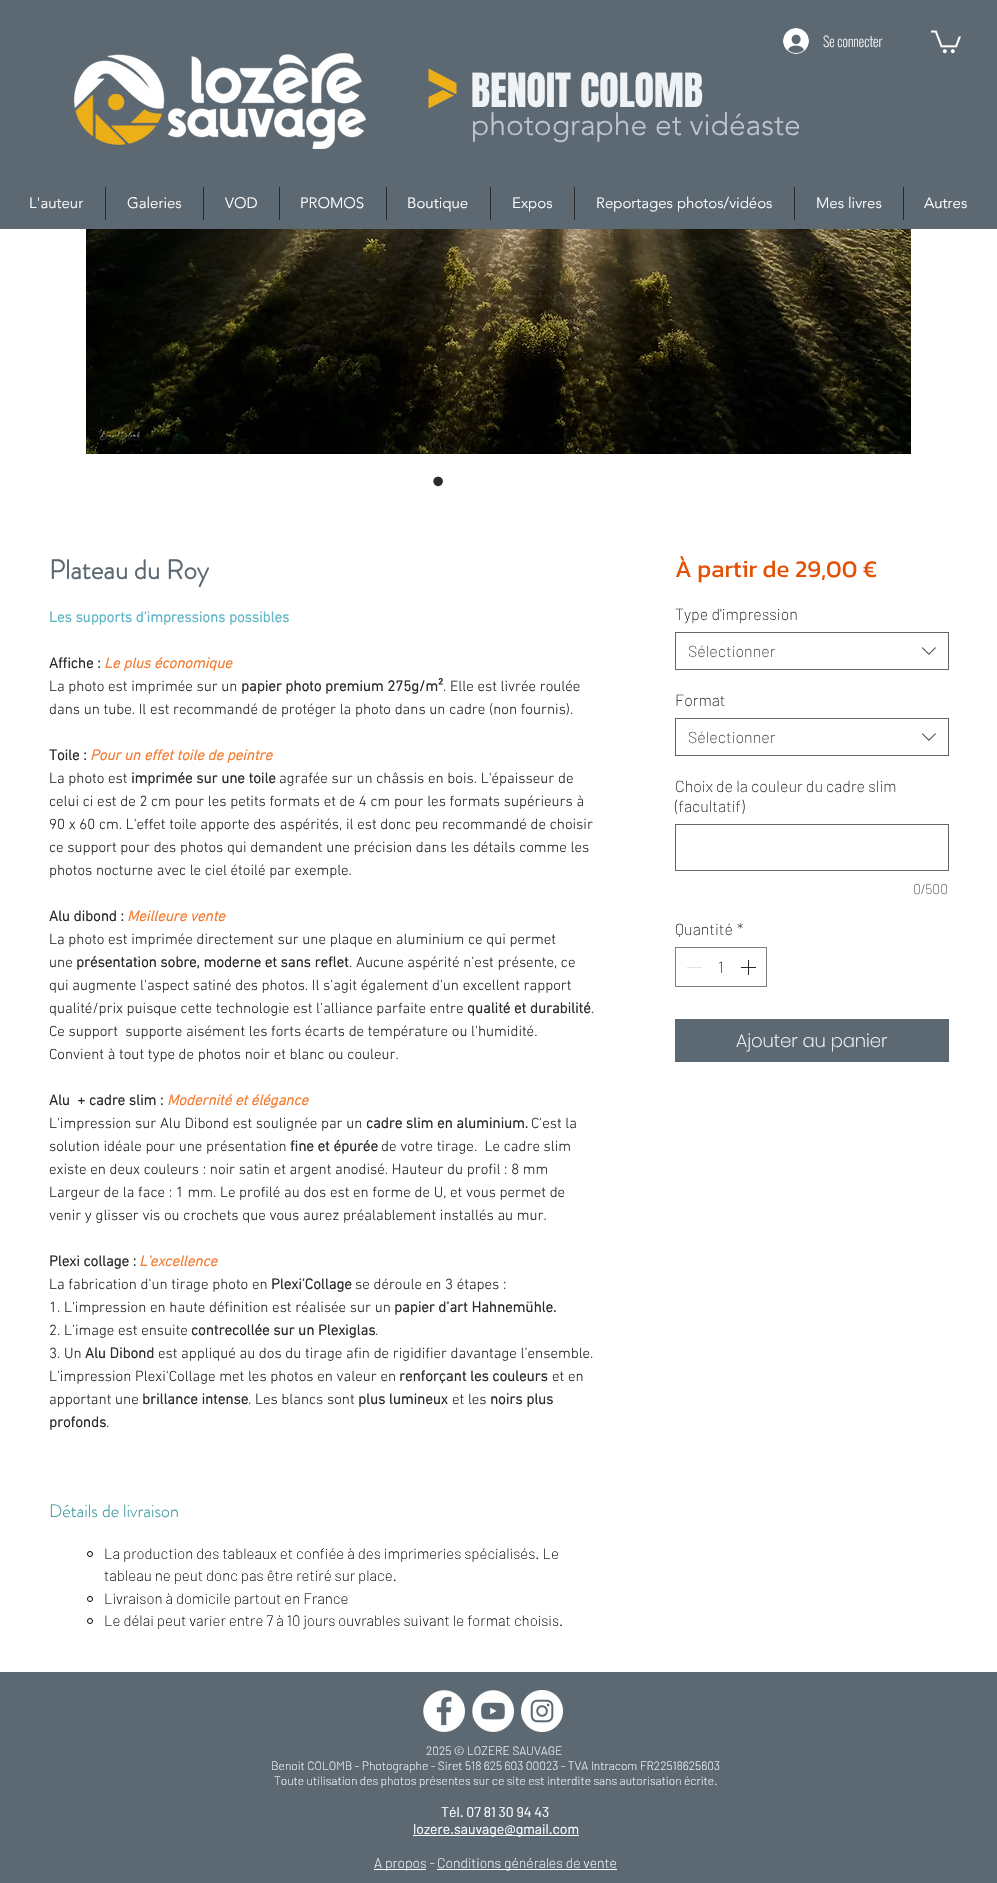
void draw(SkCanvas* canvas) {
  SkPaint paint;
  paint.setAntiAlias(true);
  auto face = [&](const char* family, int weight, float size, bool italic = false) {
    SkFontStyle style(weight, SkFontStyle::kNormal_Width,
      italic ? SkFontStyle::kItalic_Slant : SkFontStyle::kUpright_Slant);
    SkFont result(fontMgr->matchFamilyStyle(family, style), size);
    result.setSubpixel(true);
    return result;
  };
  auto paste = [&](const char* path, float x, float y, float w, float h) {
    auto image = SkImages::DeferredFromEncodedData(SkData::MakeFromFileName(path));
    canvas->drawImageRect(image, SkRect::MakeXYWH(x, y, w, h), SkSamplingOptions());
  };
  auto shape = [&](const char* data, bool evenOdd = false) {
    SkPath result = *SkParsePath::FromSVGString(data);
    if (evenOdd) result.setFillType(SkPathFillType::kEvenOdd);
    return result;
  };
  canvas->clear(0xffffffff);
  paint.setColor(0xff5c6973);
  canvas->drawRect(SkRect::MakeXYWH(0, 0, 997, 229), paint);
  paste("img/1.png", 783, 28, 26, 26);
  paste("img/2.png", 931, 30, 30, 24);
  paste("img/3.png", 74, 53, 292, 96);
  paint.setColor(0xffedaf18);
  canvas->drawPath(shape("M456.5 83V94.5L428.5 80.5V68.5Z"), paint);
  canvas->drawPath(shape("M428.5 108.5V97L443 90L454 95.5Z"), paint);
  {
    const struct { float x, y, w, h; SkColor color; } items[] = {
      {105, 187, 1, 33, 0xff2a2a2a},
      {203, 187, 1, 33, 0xff2a2a2a},
      {279, 187, 1, 33, 0xff2a2a2a},
      {386, 187, 1, 33, 0xff2a2a2a},
      {490, 187, 1, 33, 0xff2a2a2a},
      {574, 187, 1, 33, 0xff2a2a2a},
      {794, 187, 1, 33, 0xff2a2a2a},
      {903, 187, 1, 33, 0xff2a2a2a},
    };
    for (auto [x, y, w, h, color] : items) {
      paint.setColor(color);
      canvas->drawRect(SkRect::MakeXYWH(x, y, w, h), paint);
    }
  }
  paste("img/4.png", 86, 229, 825, 225);
  paint.setStroke(true);
  paint.setStrokeWidth(1);
  paint.setColor(0xff000000);
  canvas->drawCircle(90, 1554, 2.5f, paint);
  canvas->drawCircle(90, 1599, 2.5f, paint);
  canvas->drawCircle(90, 1621, 2.5f, paint);
  paint.setColor(0xff666666);
  canvas->drawRect(SkRect::MakeXYWH(675.5f, 632.5f, 273, 37), paint);
  paste("img/5.png", 921, 647, 15, 8);
  canvas->drawRect(SkRect::MakeXYWH(675.5f, 718.5f, 273, 37), paint);
  paste("img/5.png", 921, 733, 15, 8);
  canvas->drawRect(SkRect::MakeXYWH(675.5f, 824.5f, 273, 46), paint);
  paint.setColor(0xff7f7f7f);
  canvas->drawRect(SkRect::MakeXYWH(675.5f, 947.5f, 91, 39), paint);
  paint.setStroke(false);
  paint.setColor(0xffe3e3e3);
  canvas->drawRect(SkRect::MakeXYWH(687, 967, 15, 1), paint);
  paste("img/6.png", 741, 960, 15, 15);
  paint.setColor(0xff5c6973);
  canvas->drawRect(SkRect::MakeXYWH(675, 1019, 274, 43), paint);
  canvas->drawRect(SkRect::MakeXYWH(0, 1672, 997, 211), paint);
  paste("img/7.png", 423, 1690, 42, 42);
  paste("img/8.png", 472, 1690, 42, 42);
  paste("img/9.png", 521, 1690, 42, 42);
  {
    const struct { float x, y, w, h; SkColor color; } items[] = {
      {413, 1835, 166, 1, 0xffffffff},
      {374, 1869, 52, 1, 0xffffffff},
      {437, 1869, 180, 1, 0xffffffff},
    };
    for (auto [x, y, w, h, color] : items) {
      paint.setColor(color);
      canvas->drawRect(SkRect::MakeXYWH(x, y, w, h), paint);
    }
  }
  auto f0 = face("Oswald", 200, 14);
  canvas->drawString("Se connecter", 823, 47, f0, paint);
  auto f1 = face("Anton", 400, 40);
  paint.setColor(0xfff0f3f6);
  canvas->drawString("BENOIT COLOMB", 471, 107, f1, paint);
  auto f2 = face("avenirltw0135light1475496", 300, 30);
  paint.setColor(0xffbcc7d1);
  canvas->drawString("photographe et vidéaste", 471, 135, f2, paint);
  auto f3 = face("avenirltw0135light1475496", 300, 15);
  paint.setColor(0xffffffff);
  {
    const struct { const char* s; float x, y; } items[] = {
      {"L'auteur", 29, 208},
      {"Galeries", 127, 208},
      {"VOD", 225, 208},
      {"PROMOS", 300, 208},
      {"Boutique", 407, 208},
      {"Expos", 512, 208},
      {"Reportages photos/vidéos", 596, 208},
      {"Mes livres", 816, 208},
      {"Autres", 924, 208},
    };
    for (auto [s, x, y] : items) {
      canvas->drawString(s, x, y, f3, paint);
    }
  }
  auto f4 = face("Liberation Sans", 400, 35);
  paint.setColor(0xff2a2a2a);
  canvas->drawString("•", 432, 493, f4, paint);
  auto f5 = face("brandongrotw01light", 700, 27);
  paint.setColor(0xff5c6973);
  canvas->drawString("Plateau du Roy", 49, 579, f5, paint);
  auto f6 = face("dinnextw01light", 700, 15);
  paint.setColor(0xff5db6c5);
  canvas->drawString("Les supports d'impressions possibles", 49, 622, f6, paint);
  paint.setColor(0xff2a2a2a);
  canvas->drawString("Affiche :", 49, 668, f6, paint);
  auto f7 = face("dinnextw01light", 700, 15, true);
  paint.setColor(0xfff57b2f);
  canvas->drawString("Le plus économique", 104, 668, f7, paint);
  auto f8 = face("dinnextw01light", 300, 15);
  paint.setColor(0xff2a2a2a);
  canvas->drawString("La photo est imprimée sur un", 49, 691, f8, paint);
  canvas->drawString("papier photo premium 275g/m²", 241, 691, f6, paint);
  canvas->drawString(". Elle est livrée roulée", 443, 691, f8, paint);
  canvas->drawString("dans un tube. Il est recommandé de protéger la photo dans un cadre (non fournis).", 49, 714, f8, paint);
  canvas->drawString("Toile :", 49, 760, f6, paint);
  paint.setColor(0xfff57b2f);
  canvas->drawString("Pour un effet toile de peintre", 90, 760, f7, paint);
  paint.setColor(0xff2a2a2a);
  canvas->drawString("La photo est", 49, 783, f8, paint);
  canvas->drawString("imprimée sur une toile", 131, 783, f6, paint);
  {
    const struct { const char* s; float x, y; } items[] = {
      {"agrafée sur un châssis en bois. L'épaisseur de", 279, 783},
      {"celui ci est de 2 cm pour les petits formats et de 4 cm pour les formats supérieurs à", 49, 806},
      {"90 x 60 cm. L'effet toile apporte des aspérités, il est donc peu recommandé de choisir", 49, 829},
      {"ce support pour des photos qui demandent une précision dans les détails comme les", 49, 852},
      {"photos nocturne avec le ciel étoilé par exemple.", 49, 875},
    };
    for (auto [s, x, y] : items) {
      canvas->drawString(s, x, y, f8, paint);
    }
  }
  canvas->drawString("Alu dibond :", 49, 921, f6, paint);
  paint.setColor(0xfff57b2f);
  canvas->drawString("Meilleure vente", 127, 921, f7, paint);
  paint.setColor(0xff2a2a2a);
  canvas->drawString("La photo est imprimée directement sur une plaque en aluminium ce qui permet", 49, 944, f8, paint);
  canvas->drawString("une", 49, 967, f8, paint);
  canvas->drawString("présentation sobre, moderne et sans reflet", 76, 967, f6, paint);
  {
    const struct { const char* s; float x, y; } items[] = {
      {". Aucune aspérité n’est présente, ce", 349, 967},
      {"qui augmente l'aspect satiné des photos. Il s'agit également d'un excellent rapport", 49, 990},
      {"qualité/prix puisque cette technologie est l’alliance parfaite entre", 49, 1013},
    };
    for (auto [s, x, y] : items) {
      canvas->drawString(s, x, y, f8, paint);
    }
  }
  canvas->drawString("qualité et durabilité", 467, 1013, f6, paint);
  {
    const struct { const char* s; float x, y; } items[] = {
      {".", 591, 1013},
      {"Ce support  supporte aisément les forts écarts de température ou l'humidité.", 49, 1036},
      {"Convient à tout type de photos noir et blanc ou couleur.", 49, 1059},
    };
    for (auto [s, x, y] : items) {
      canvas->drawString(s, x, y, f8, paint);
    }
  }
  canvas->drawString("Alu  + cadre slim :", 49, 1105, f6, paint);
  paint.setColor(0xfff57b2f);
  canvas->drawString("Modernité et élégance", 167, 1105, f7, paint);
  paint.setColor(0xff2a2a2a);
  canvas->drawString("L'impression sur Alu Dibond est soulignée par un", 49, 1128, f8, paint);
  canvas->drawString("cadre slim en aluminium.", 366, 1128, f6, paint);
  canvas->drawString("C'est la", 531, 1128, f8, paint);
  canvas->drawString("solution idéale pour une présentation", 49, 1151, f8, paint);
  canvas->drawString("fine et épurée", 290, 1151, f6, paint);
  {
    const struct { const char* s; float x, y; } items[] = {
      {"de votre tirage.  Le cadre slim", 381, 1151},
      {"existe en deux couleurs : noir satin et argent anodisé. Hauteur du profil : 8 mm", 49, 1174},
      {"Largeur de la face : 1 mm. Le profilé au dos est en forme de U, et vous permet de", 49, 1197},
      {"venir y glisser vis ou crochets que vous aurez préalablement installés au mur.", 49, 1220},
    };
    for (auto [s, x, y] : items) {
      canvas->drawString(s, x, y, f8, paint);
    }
  }
  canvas->drawString("Plexi collage :", 49, 1266, f6, paint);
  paint.setColor(0xfff57b2f);
  canvas->drawString("L'excellence", 139, 1266, f7, paint);
  paint.setColor(0xff2a2a2a);
  canvas->drawString("La fabrication d'un tirage photo en", 49, 1289, f8, paint);
  canvas->drawString("Plexi’Collage", 271, 1289, f6, paint);
  canvas->drawString("se déroule en 3 étapes :", 355, 1289, f8, paint);
  canvas->drawString("1. L'impression en haute définition est réalisée sur un", 49, 1312, f8, paint);
  canvas->drawString("papier d’art Hahnemühle.", 394, 1312, f6, paint);
  canvas->drawString("2. L’image est ensuite", 49, 1335, f8, paint);
  canvas->drawString("contrecollée sur un Plexiglas", 191, 1335, f6, paint);
  canvas->drawString(".", 375, 1335, f8, paint);
  canvas->drawString("3. Un", 49, 1358, f8, paint);
  canvas->drawString("Alu Dibond", 85, 1358, f6, paint);
  canvas->drawString("est appliqué au dos du tirage afin de rigidifier davantage l’ensemble.", 158, 1358, f8, paint);
  canvas->drawString("L'impression Plexi'Collage met les photos en valeur en", 49, 1381, f8, paint);
  canvas->drawString("renforçant les couleurs", 399, 1381, f6, paint);
  canvas->drawString("et en", 552, 1381, f8, paint);
  canvas->drawString("apportant une", 49, 1404, f8, paint);
  canvas->drawString("brillance intense", 142, 1404, f6, paint);
  canvas->drawString(". Les blancs sont", 248, 1404, f8, paint);
  canvas->drawString("plus lumineux", 358, 1404, f6, paint);
  canvas->drawString("et les", 452, 1404, f8, paint);
  canvas->drawString("noirs plus", 490, 1404, f6, paint);
  canvas->drawString("profonds", 49, 1427, f6, paint);
  canvas->drawString(".", 106, 1427, f8, paint);
  auto f9 = face("brandongrotw01light", 300, 18);
  paint.setColor(0xff2e9499);
  canvas->drawString("Détails de livraison", 49, 1517, f9, paint);
  auto f10 = face("Barlow", 200, 15);
  paint.setColor(0xff000000);
  {
    const struct { const char* s; float x, y; } items[] = {
      {"La production des tableaux et confiée à des imprimeries spécialisés. Le", 104, 1559},
      {"tableau ne peut donc pas être retiré sur place.", 104, 1581},
      {"Livraison à domicile partout en France", 104, 1604},
      {"Le délai peut varier entre 7 à 10 jours ouvrables suivant le format choisis.", 104, 1626},
    };
    for (auto [s, x, y] : items) {
      canvas->drawString(s, x, y, f10, paint);
    }
  }
  auto f11 = face("Kanit", 400, 24);
  paint.setColor(0xffe35106);
  canvas->drawString("À partir de 29,00 €", 675, 577, f11, paint);
  auto f12 = face("Barlow", 200, 16);
  paint.setColor(0xff2a2a2a);
  canvas->drawString("Type d'impression", 675, 620, f12, paint);
  paint.setColor(0xff444444);
  canvas->drawString("Sélectionner", 688, 657, f12, paint);
  paint.setColor(0xff2a2a2a);
  canvas->drawString("Format", 675, 706, f12, paint);
  paint.setColor(0xff444444);
  canvas->drawString("Sélectionner", 688, 743, f12, paint);
  paint.setColor(0xff2a2a2a);
  canvas->drawString("Choix de la couleur du cadre slim", 675, 792, f12, paint);
  canvas->drawString("(facultatif)", 675, 812, f12, paint);
  auto f13 = face("Barlow", 200, 14);
  paint.setColor(0xff555555);
  canvas->drawString("0/500", 913, 894, f13, paint);
  paint.setColor(0xff2a2a2a);
  {
    const struct { const char* s; float x, y; } items[] = {
      {"Quantité", 675, 935},
      {"*", 737, 935},
      {"1", 718, 973},
    };
    for (auto [s, x, y] : items) {
      canvas->drawString(s, x, y, f12, paint);
    }
  }
  auto f14 = face("Poppins", 200, 18);
  paint.setColor(0xffffffff);
  canvas->drawString("Ajouter au panier", 736, 1047, f14, paint);
  auto f15 = face("Barlow", 200, 12);
  {
    const struct { const char* s; float x, y; } items[] = {
      {"2025 © LOZERE SAUVAGE", 426, 1755},
      {"Benoit COLOMB - Photographe - Siret 518 625 603 00023 - TVA Intracom FR22518625603", 271, 1770},
      {"Toute utilisation des photos présentes sur ce site est interdite sans autorisation écrite.", 274, 1785},
    };
    for (auto [s, x, y] : items) {
      canvas->drawString(s, x, y, f15, paint);
    }
  }
  auto f16 = face("Barlow", 400, 14);
  canvas->drawString("Tél. 07 81 30 94 43", 441, 1817, f16, paint);
  canvas->drawString("lozere.sauvage@gmail.com", 413, 1834, f16, paint);
  canvas->drawString("A propos -", 374, 1868, f13, paint);
  canvas->drawString("Conditions générales de vente", 437, 1868, f13, paint);
}
